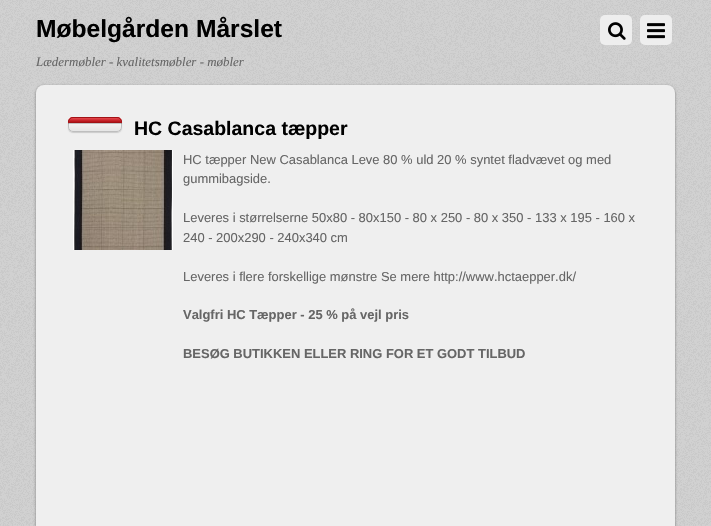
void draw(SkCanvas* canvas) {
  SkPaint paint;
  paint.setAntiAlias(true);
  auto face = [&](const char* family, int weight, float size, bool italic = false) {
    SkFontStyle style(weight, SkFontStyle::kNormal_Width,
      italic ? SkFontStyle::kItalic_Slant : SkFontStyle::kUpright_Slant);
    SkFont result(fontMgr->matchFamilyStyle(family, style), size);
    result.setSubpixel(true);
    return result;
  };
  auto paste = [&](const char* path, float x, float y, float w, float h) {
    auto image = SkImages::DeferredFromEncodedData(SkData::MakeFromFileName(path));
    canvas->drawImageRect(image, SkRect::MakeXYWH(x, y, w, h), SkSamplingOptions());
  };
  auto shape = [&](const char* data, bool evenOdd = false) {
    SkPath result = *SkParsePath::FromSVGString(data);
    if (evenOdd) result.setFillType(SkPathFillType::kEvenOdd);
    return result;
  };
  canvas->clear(0xffffffff);
  paste("img/1.png", 0, 0, 711, 526);
  paint.setColor(0xffeeeeee);
  canvas->drawRoundRect(SkRect::MakeXYWH(600, 15, 32, 30), 5, 5, paint);
  paste("img/2.png", 608, 22, 18, 18);
  canvas->drawRoundRect(SkRect::MakeXYWH(640, 15, 32, 30), 5, 5, paint);
  paste("img/3.png", 647, 23, 18, 16);
  paint.setColor(0x66000000);
  paint.setMaskFilter(SkMaskFilter::MakeBlur(kNormal_SkBlurStyle, 1.5f));
  canvas->drawRoundRect(SkRect::MakeXYWH(36, 86, 639, 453), 8, 8, paint);
  paint.setMaskFilter(nullptr);
  paint.setColor(0xffefefef);
  canvas->drawRoundRect(SkRect::MakeXYWH(36, 85, 639, 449), 8, 8, paint);
  paint.setColor(0x26000000);
  paint.setMaskFilter(SkMaskFilter::MakeBlur(kNormal_SkBlurStyle, 0.5f));
  canvas->drawRoundRect(SkRect::MakeXYWH(68, 118, 54, 15), 5, 5, paint);
  paint.setMaskFilter(nullptr);
  paint.setColor(0xffffffff);
  canvas->drawRoundRect(SkRect::MakeXYWH(68, 117, 54, 15), 5, 5, paint);
  canvas->save();
  canvas->clipPath(shape("M73 117H117C120 117 122 119 122 122V127C122 130 120 132 117 132H73C70 132 68 130 68 127V122C68 119 70 117 73 117Z"), true);
  {
    const SkColor colors[] = {0x00000000, 0x1a000000};
    const float stops[] = {0, 1};
    const SkPoint ends[] = {{95, 118}, {95, 131}};
    paint.setShader(SkGradientShader::MakeLinear(ends, colors, stops, 2, SkTileMode::kClamp));
    paint.setAlpha(255);
  }
  canvas->drawRect(SkRect::MakeXYWH(68, 121, 54, 10), paint);
  canvas->restore();
  paint.setStroke(true);
  paint.setStrokeWidth(1);
  paint.setShader(nullptr);
  paint.setColor(0xffbebebe);
  canvas->drawRoundRect(SkRect::MakeXYWH(68.5f, 117.5f, 53, 14), 4.5f, 4.5f, paint);
  paint.setStroke(false);
  paint.setColor(0x33000000);
  canvas->drawRect(SkRect::MakeXYWH(68, 123, 54, 1), paint);
  paint.setColor(0xffe0161d);
  canvas->drawPath(shape("M73 117H117C120 117 122 119 122 122V123H68V122C68 119 70 117 73 117Z"), paint);
  canvas->save();
  canvas->clipPath(shape("M73 117H117C120 117 122 119 122 122V123H68V122C68 119 70 117 73 117Z"), true);
  {
    const SkColor colors[] = {0x33ffffff, 0x33000000};
    const float stops[] = {0, 1};
    const SkPoint ends[] = {{95, 118}, {95, 122}};
    paint.setShader(SkGradientShader::MakeLinear(ends, colors, stops, 2, SkTileMode::kClamp));
    paint.setAlpha(255);
  }
  canvas->drawRect(SkRect::MakeXYWH(68, 118, 54, 4), paint);
  canvas->restore();
  paint.setStroke(true);
  paint.setShader(nullptr);
  paint.setColor(0xffa11216);
  canvas->drawPath(shape("M73 117.5H117C119.5 117.5 121.5 119.5 121.5 122V122.5H68.5V122C68.5 119.5 70.5 117.5 73 117.5Z"), paint);
  paste("img/4.png", 73, 150, 100, 100);
  auto f0 = face("Liberation Sans", 700, 24.6f);
  paint.setStroke(false);
  paint.setColor(0xff000000);
  canvas->drawString("Møbelgården Mårslet", 36, 37, f0, paint);
  auto f1 = face("Liberation Serif", 400, 12.95f, true);
  paint.setColor(0xff666666);
  canvas->drawString("Lædermøbler - kvalitetsmøbler - møbler", 36, 66, f1, paint);
  auto f2 = face("Liberation Sans", 700, 19.5f);
  paint.setColor(0xff000000);
  canvas->drawString("HC Casablanca tæpper", 134, 135, f2, paint);
  auto f3 = face("Liberation Sans", 400, 12.95f);
  paint.setColor(0xff666666);
  {
    const struct { const char* s; float x, y; } items[] = {
      {"HC tæpper New Casablanca Leve 80 % uld 20 % syntet fladvævet og med", 183, 164},
      {"gummibagside.", 183, 183},
      {"Leveres i størrelserne 50x80 - 80x150 - 80 x 250 - 80 x 350 - 133 x 195 - 160 x", 183, 222},
      {"240 - 200x290 - 240x340 cm", 183, 242},
      {"Leveres i flere forskellige mønstre Se mere http://www.hctaepper.dk/", 183, 281},
    };
    for (auto [s, x, y] : items) {
      canvas->drawString(s, x, y, f3, paint);
    }
  }
  auto f4 = face("Liberation Sans", 700, 12.95f);
  canvas->drawString("Valgfri HC Tæpper - 25 % på vejl pris", 183, 319, f4, paint);
  canvas->drawString("BESØG BUTIKKEN ELLER RING FOR ET GODT TILBUD", 183, 358, f4, paint);
}
